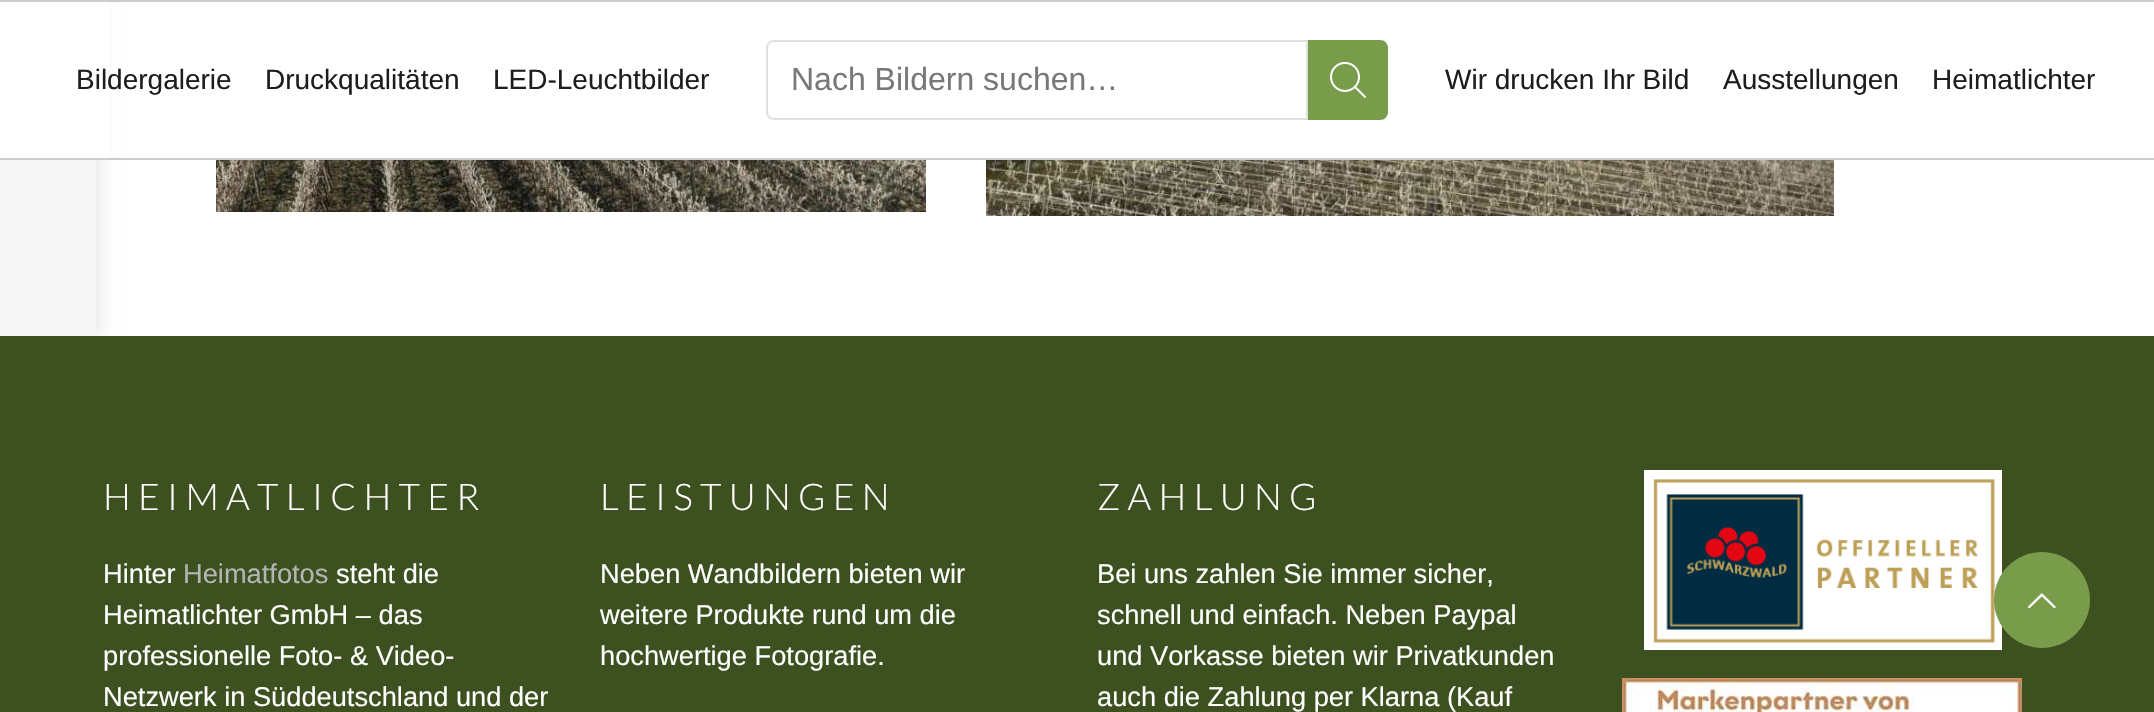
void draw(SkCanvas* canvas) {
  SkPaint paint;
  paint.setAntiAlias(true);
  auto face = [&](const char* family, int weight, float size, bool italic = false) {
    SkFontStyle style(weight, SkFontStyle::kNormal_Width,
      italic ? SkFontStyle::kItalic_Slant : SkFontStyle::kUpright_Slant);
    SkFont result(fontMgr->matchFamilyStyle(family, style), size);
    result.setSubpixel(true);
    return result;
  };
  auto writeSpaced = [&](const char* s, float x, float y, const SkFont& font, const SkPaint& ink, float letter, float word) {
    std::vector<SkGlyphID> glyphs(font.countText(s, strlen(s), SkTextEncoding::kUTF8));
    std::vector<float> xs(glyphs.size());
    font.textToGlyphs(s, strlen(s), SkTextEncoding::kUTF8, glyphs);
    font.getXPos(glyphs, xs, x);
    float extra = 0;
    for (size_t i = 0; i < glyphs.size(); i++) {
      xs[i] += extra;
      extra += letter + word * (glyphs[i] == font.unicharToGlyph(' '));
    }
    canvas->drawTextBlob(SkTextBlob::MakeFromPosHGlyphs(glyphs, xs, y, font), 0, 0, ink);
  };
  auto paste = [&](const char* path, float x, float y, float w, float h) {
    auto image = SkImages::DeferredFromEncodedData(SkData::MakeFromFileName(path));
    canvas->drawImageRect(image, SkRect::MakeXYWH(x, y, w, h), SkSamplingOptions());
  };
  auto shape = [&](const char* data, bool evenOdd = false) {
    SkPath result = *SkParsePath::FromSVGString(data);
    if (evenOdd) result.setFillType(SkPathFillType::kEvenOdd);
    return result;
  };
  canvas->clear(0xffffffff);
  paint.setColor(0x1a000000);
  paint.setMaskFilter(SkMaskFilter::MakeBlur(kNormal_SkBlurStyle, 8));
  canvas->drawRect(SkRect::MakeXYWH(-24, -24, 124, 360), paint);
  paint.setMaskFilter(nullptr);
  paint.setColor(0xfff7f7f7);
  canvas->drawRect(SkRect::MakeXYWH(0, 160, 96, 176), paint);
  paste("img/1.png", 216, 160, 710, 52);
  paste("img/2.png", 986, 160, 848, 56);
  {
    const struct { float x, y, w, h; SkColor color; } items[] = {
      {0, 2, 110, 156, 0xffffffff},
      {0, 0, 2154, 2, 0xffcccccc},
      {0, 158, 2154, 2, 0xffcccccc},
    };
    for (auto [x, y, w, h, color] : items) {
      paint.setColor(color);
      canvas->drawRect(SkRect::MakeXYWH(x, y, w, h), paint);
    }
  }
  paint.setStroke(true);
  paint.setStrokeWidth(2);
  paint.setColor(0xffe0e0e0);
  canvas->drawPath(shape("M774 41H1307V119H774C770 119 767 116 767 112V48C767 44 770 41 774 41Z"), paint);
  paint.setStroke(false);
  paint.setColor(0xff799c4b);
  canvas->drawPath(shape("M1308 40H1380C1384.5 40 1388 43.5 1388 48V112C1388 116.5 1384.5 120 1380 120H1308Z"), paint);
  paste("img/3.png", 1330, 62, 36, 36);
  paint.setColor(0xff3d5020);
  canvas->drawRect(SkRect::MakeXYWH(0, 336, 2154, 376), paint);
  paste("img/4.png", 1644, 470, 358, 180);
  paste("img/5.png", 1622, 678, 400, 34);
  paint.setColor(0xff799c4b);
  canvas->drawCircle(2042, 600, 48, paint);
  paste("img/6.png", 2028, 593, 28, 16);
  auto f0 = face("Liberation Sans", 400, 28);
  paint.setColor(0xff1d1d1b);
  {
    const struct { const char* s; float x, y; } items[] = {
      {"Bildergalerie", 76, 89},
      {"Druckqualitäten", 265, 89},
      {"LED-Leuchtbilder", 493, 89},
    };
    for (auto [s, x, y] : items) {
      canvas->drawString(s, x, y, f0, paint);
    }
  }
  auto f1 = face("Liberation Sans", 400, 32);
  paint.setColor(0xff787878);
  canvas->drawString("Nach Bildern suchen…", 791, 90, f1, paint);
  paint.setColor(0xff1d1d1b);
  {
    const struct { const char* s; float x, y; } items[] = {
      {"Wir drucken Ihr Bild", 1445, 89},
      {"Ausstellungen", 1723, 89},
      {"Heimatlichter", 1932, 89},
    };
    for (auto [s, x, y] : items) {
      canvas->drawString(s, x, y, f0, paint);
    }
  }
  auto f2 = face("Lato", 300, 36.75f);
  paint.setColor(0xffffffff);
  writeSpaced("HEIMATLICHTER", 103, 510, f2, paint, 7.3f, 0);
  auto f3 = face("Liberation Sans", 400, 27.25f);
  canvas->drawString("Hinter", 103, 583, f3, paint);
  paint.setColor(0xffb4b4b4);
  canvas->drawString("Heimatfotos", 183, 583, f3, paint);
  paint.setColor(0xffffffff);
  {
    const struct { const char* s; float x, y; } items[] = {
      {"steht die", 336, 583},
      {"Heimatlichter GmbH – das", 103, 624},
      {"professionelle Foto- & Video-", 103, 665},
      {"Netzwerk in Süddeutschland und der", 103, 706},
    };
    for (auto [s, x, y] : items) {
      canvas->drawString(s, x, y, f3, paint);
    }
  }
  writeSpaced("LEISTUNGEN", 600, 510, f2, paint, 7.3f, 0);
  {
    const struct { const char* s; float x, y; } items[] = {
      {"Neben Wandbildern bieten wir", 600, 583},
      {"weitere Produkte rund um die", 600, 624},
      {"hochwertige Fotografie.", 600, 665},
    };
    for (auto [s, x, y] : items) {
      canvas->drawString(s, x, y, f3, paint);
    }
  }
  writeSpaced("ZAHLUNG", 1097, 510, f2, paint, 7.3f, 0);
  {
    const struct { const char* s; float x, y; } items[] = {
      {"Bei uns zahlen Sie immer sicher,", 1097, 583},
      {"schnell und einfach. Neben Paypal", 1097, 624},
      {"und Vorkasse bieten wir Privatkunden", 1097, 665},
      {"auch die Zahlung per Klarna (Kauf", 1097, 706},
    };
    for (auto [s, x, y] : items) {
      canvas->drawString(s, x, y, f3, paint);
    }
  }
}
